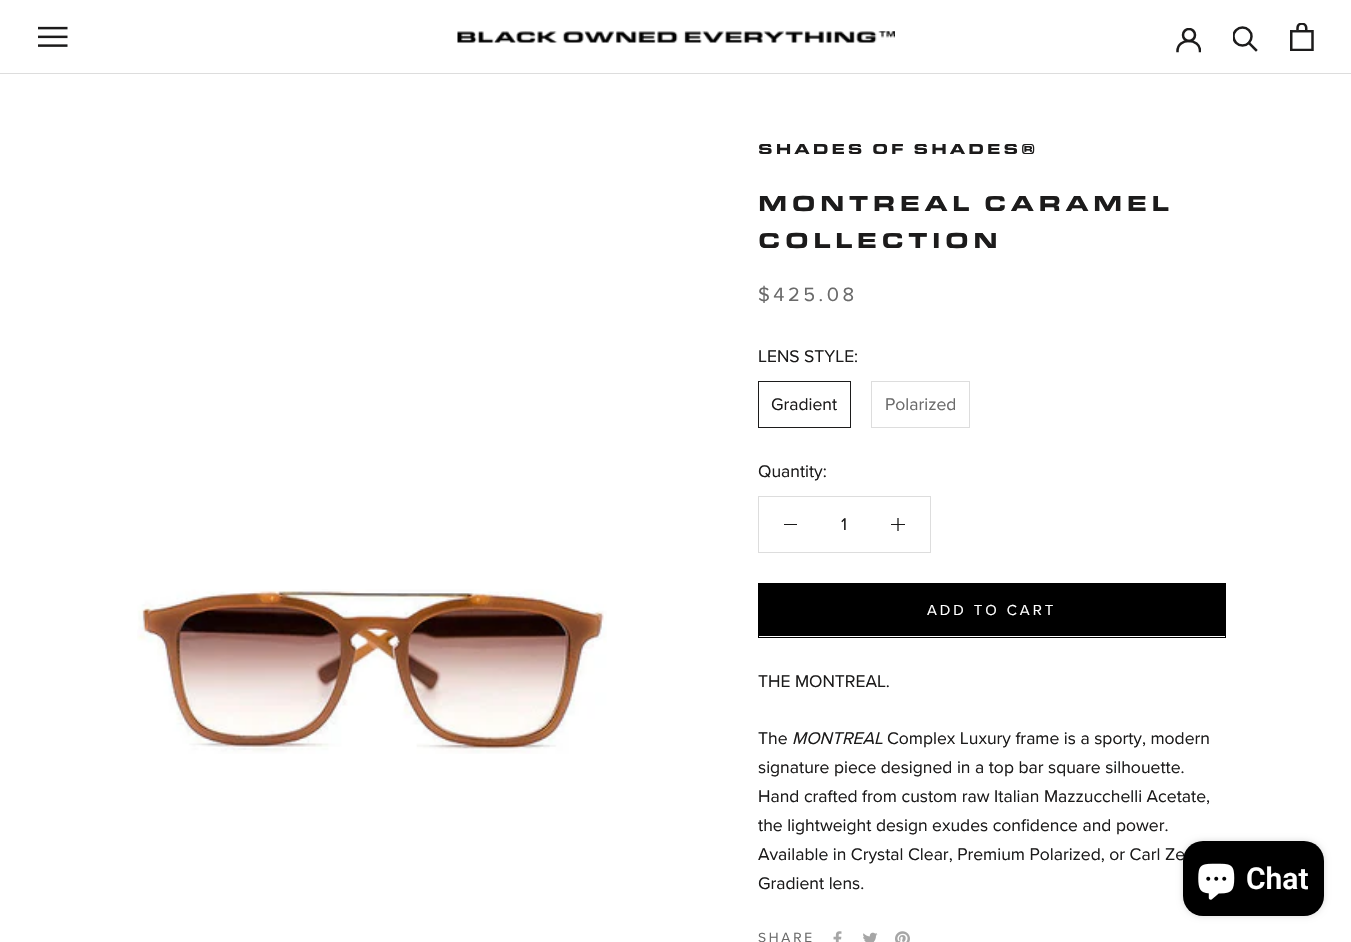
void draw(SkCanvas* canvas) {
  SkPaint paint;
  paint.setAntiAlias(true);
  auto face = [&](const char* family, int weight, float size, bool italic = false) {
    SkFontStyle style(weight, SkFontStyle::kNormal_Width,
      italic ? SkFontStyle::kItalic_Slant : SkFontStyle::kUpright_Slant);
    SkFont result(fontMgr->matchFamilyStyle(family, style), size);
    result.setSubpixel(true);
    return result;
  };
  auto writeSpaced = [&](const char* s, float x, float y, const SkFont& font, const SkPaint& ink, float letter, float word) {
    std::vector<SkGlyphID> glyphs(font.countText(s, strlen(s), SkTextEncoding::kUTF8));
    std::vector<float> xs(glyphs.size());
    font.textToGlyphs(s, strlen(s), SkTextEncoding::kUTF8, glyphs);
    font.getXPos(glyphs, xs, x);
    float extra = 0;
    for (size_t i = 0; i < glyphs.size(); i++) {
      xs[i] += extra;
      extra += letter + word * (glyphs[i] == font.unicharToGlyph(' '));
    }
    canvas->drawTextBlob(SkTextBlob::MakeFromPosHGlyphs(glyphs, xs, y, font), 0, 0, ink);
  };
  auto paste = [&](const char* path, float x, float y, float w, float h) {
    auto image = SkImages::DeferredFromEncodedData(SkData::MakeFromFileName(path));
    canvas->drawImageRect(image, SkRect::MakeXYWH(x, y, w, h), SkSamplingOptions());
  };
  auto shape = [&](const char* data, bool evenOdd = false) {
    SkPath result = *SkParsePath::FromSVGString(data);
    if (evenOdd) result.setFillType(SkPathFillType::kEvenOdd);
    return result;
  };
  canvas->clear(0xffffffff);
  paint.setColor(0xffdddddd);
  canvas->drawRect(SkRect::MakeXYWH(0, 73, 1351, 1), paint);
  paste("img/1.png", 38, 26, 30, 21);
  paste("img/2.png", 457, 31, 438, 12);
  canvas->save();
  canvas->clipRect(SkRect::MakeXYWH(1176, 28, 25, 25));
  paint.setStroke(true);
  paint.setStrokeWidth(2.5f);
  paint.setStrokeCap(SkPaint::kSquare_Cap);
  paint.setColor(0xff1c1b1b);
  canvas->drawPath(shape("M1177.5 51C1177.5 37.5 1200 37.5 1200 51"), paint);
  paint.setStrokeCap(SkPaint::kButt_Cap);
  canvas->drawCircle(1189, 35, 6, paint);
  canvas->restore();
  paint.setStrokeCap(SkPaint::kSquare_Cap);
  canvas->drawPath(shape("M1256 50L1249 43"), paint);
  canvas->save();
  canvas->clipRect(SkRect::MakeXYWH(1233, 26, 26, 27));
  paint.setStrokeCap(SkPaint::kButt_Cap);
  canvas->drawCircle(1242.5f, 36.5f, 9, paint);
  canvas->restore();
  paste("img/3.png", 1290, 23, 24, 28);
  paste("img/4.png", 137, 589, 470, 165);
  paint.setStrokeWidth(1);
  canvas->drawRect(SkRect::MakeXYWH(758.5f, 381.5f, 92, 46), paint);
  paint.setColor(0xffdddddd);
  canvas->drawRect(SkRect::MakeXYWH(871.5f, 381.5f, 98, 46), paint);
  canvas->drawRect(SkRect::MakeXYWH(758.5f, 496.5f, 172, 56), paint);
  paint.setStroke(false);
  paint.setColor(0xff1c1b1b);
  canvas->drawRect(SkRect::MakeXYWH(784, 524, 13, 1), paint);
  canvas->save();
  canvas->clipRect(SkRect::MakeXYWH(891, 518, 14, 13));
  paint.setStroke(true);
  paint.setStrokeWidth(1.3f);
  paint.setStrokeCap(SkPaint::kSquare_Cap);
  canvas->drawPath(shape("M898 518.5V530.5"), paint);
  canvas->restore();
  paint.setStroke(false);
  canvas->drawRect(SkRect::MakeXYWH(891, 524, 14, 1), paint);
  paint.setStroke(true);
  paint.setStrokeWidth(1);
  paint.setStrokeCap(SkPaint::kButt_Cap);
  paint.setColor(0xff000000);
  canvas->drawRect(SkRect::MakeXYWH(758.5f, 583.5f, 467, 54), paint);
  paint.setStroke(false);
  canvas->drawRect(SkRect::MakeXYWH(759, 584, 466, 52), paint);
  paste("img/5.png", 833, 931, 9, 11);
  paste("img/6.png", 863, 932, 15, 10);
  paste("img/7.png", 895, 931, 15, 11);
  paint.setColor(0x26000000);
  paint.setMaskFilter(SkMaskFilter::MakeBlur(kNormal_SkBlurStyle, 3));
  canvas->drawRoundRect(SkRect::MakeXYWH(1183, 841, 141, 75), 20, 20, paint);
  paint.setMaskFilter(nullptr);
  auto f0 = face("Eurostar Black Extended", 900, 15);
  paint.setColor(0xff1c1b1b);
  writeSpaced("SHADES OF SHADES®", 758, 154, f0, paint, 3, 0);
  auto f1 = face("Eurostar Black Extended", 900, 22.5f);
  writeSpaced("MONTREAL CARAMEL", 758, 211, f1, paint, 4.5f, 0);
  writeSpaced("COLLECTION", 758, 248, f1, paint, 4.5f, 0);
  auto f2 = face("Proxima Nova", 400, 20);
  paint.setColor(0xff6a6a6a);
  writeSpaced("$425.08", 758, 301, f2, paint, 3.5f, 0);
  auto f3 = face("Proxima Nova", 400, 17.5f);
  paint.setColor(0xff1c1b1b);
  canvas->drawString("LENS STYLE:", 758, 362, f3, paint);
  canvas->drawString("Gradient", 771, 410, f3, paint);
  paint.setColor(0xff6a6a6a);
  canvas->drawString("Polarized", 885, 410, f3, paint);
  paint.setColor(0xff1c1b1b);
  canvas->drawString("Quantity:", 758, 477, f3, paint);
  canvas->drawString("1", 841, 530, f3, paint);
  auto f4 = face("Proxima Nova", 400, 15);
  paint.setColor(0xffffffff);
  writeSpaced("ADD TO CART", 927, 615, f4, paint, 3, 0);
  paint.setColor(0xff1c1b1b);
  canvas->drawString("THE MONTREAL.", 758, 687, f3, paint);
  canvas->drawString("The", 758, 744, f3, paint);
  auto f5 = face("Proxima Nova", 400, 17.5f, true);
  canvas->drawString("MONTREAL", 792, 744, f5, paint);
  {
    const struct { const char* s; float x, y; } items[] = {
      {"Complex Luxury frame is a sporty, modern", 887, 744},
      {"signature piece designed in a top bar square silhouette.", 758, 773},
      {"Hand crafted from custom raw Italian Mazzucchelli Acetate,", 758, 802},
      {"the lightweight design exudes confidence and power.", 758, 831},
      {"Available in Crystal Clear, Premium Polarized, or Carl Ze", 758, 860},
      {"Gradient lens.", 758, 889},
    };
    for (auto [s, x, y] : items) {
      canvas->drawString(s, x, y, f3, paint);
    }
  }
  auto f6 = face("Proxima Nova", 400, 13.75f);
  paint.setColor(0xff6a6a6a);
  writeSpaced("SHARE", 758, 942, f6, paint, 2.75f, 0);
  paint.setColor(0xff000000);
  canvas->drawRoundRect(SkRect::MakeXYWH(1183, 841, 141, 75), 20, 20, paint);
  paste("img/8.png", 1198, 863, 37, 37);
  auto f7 = face("Roboto", 600, 30);
  paint.setColor(0xffffffff);
  canvas->drawString("Chat", 1246, 889, f7, paint);
}
